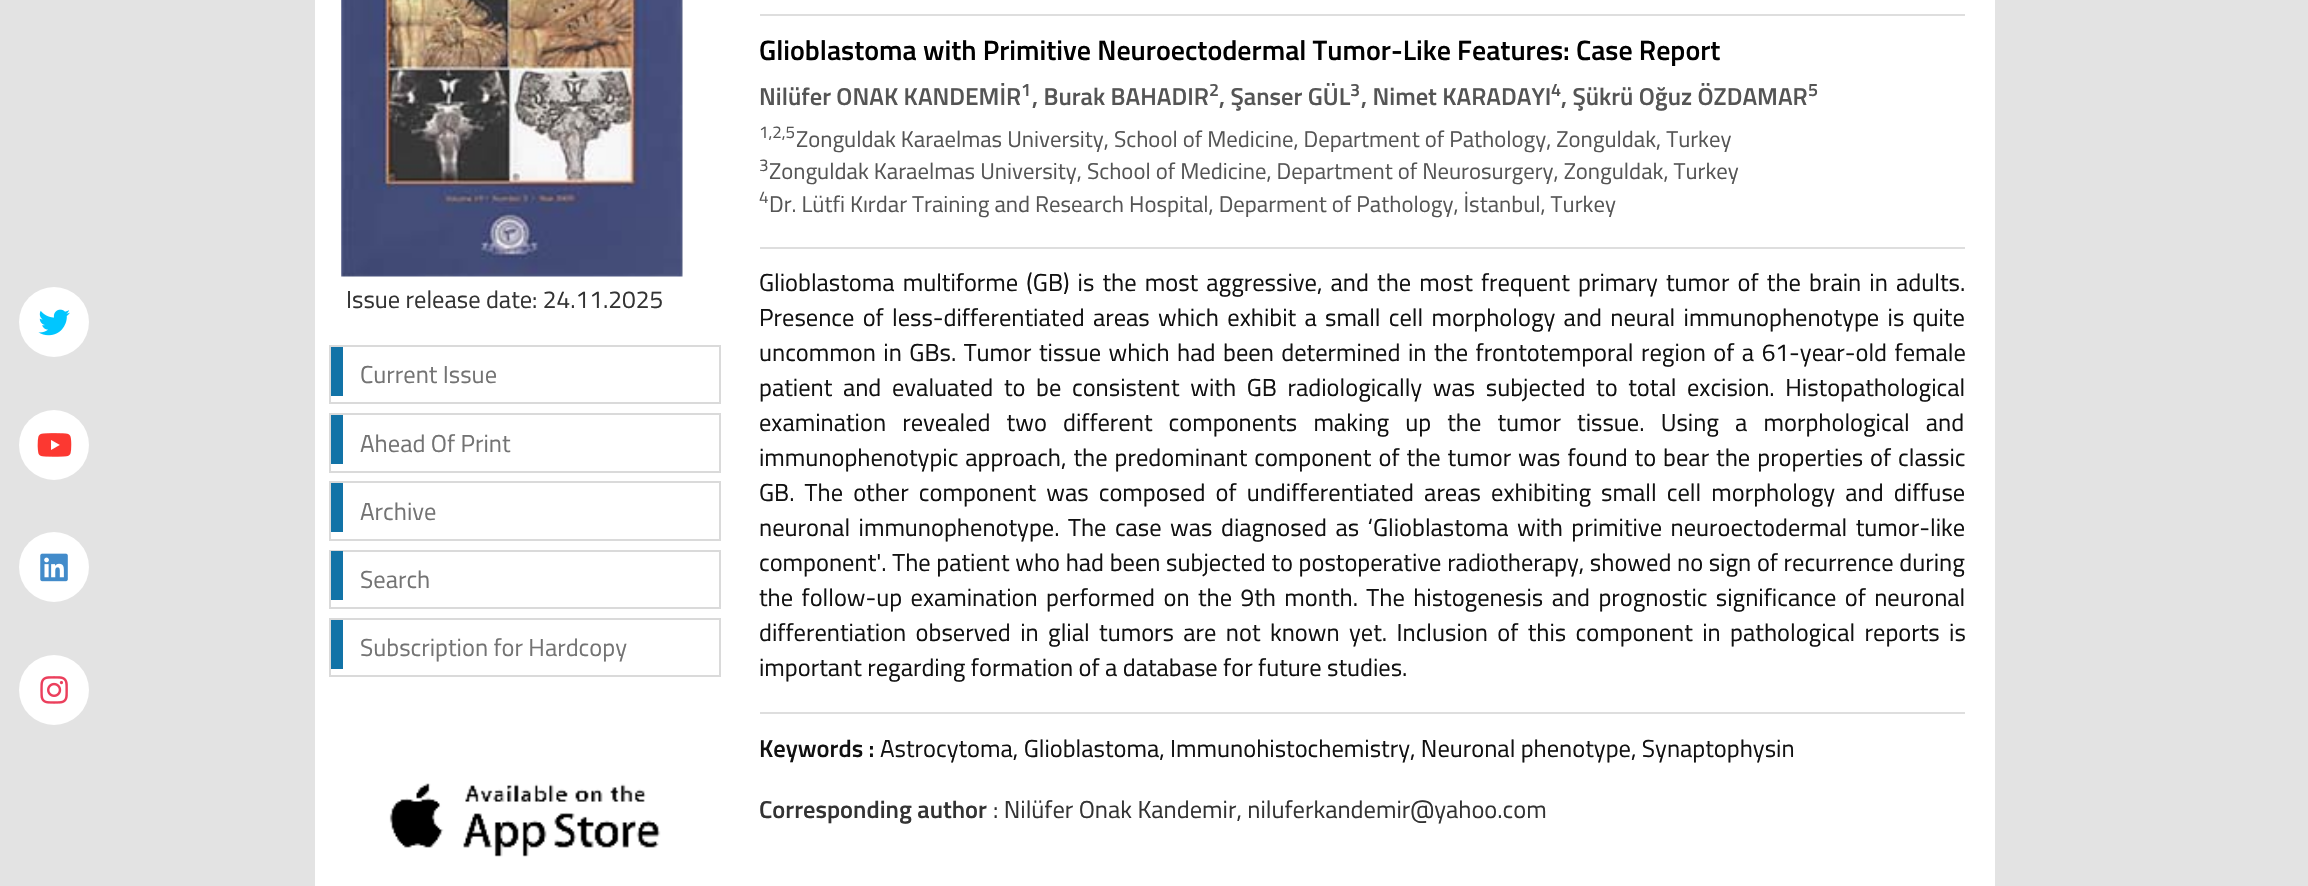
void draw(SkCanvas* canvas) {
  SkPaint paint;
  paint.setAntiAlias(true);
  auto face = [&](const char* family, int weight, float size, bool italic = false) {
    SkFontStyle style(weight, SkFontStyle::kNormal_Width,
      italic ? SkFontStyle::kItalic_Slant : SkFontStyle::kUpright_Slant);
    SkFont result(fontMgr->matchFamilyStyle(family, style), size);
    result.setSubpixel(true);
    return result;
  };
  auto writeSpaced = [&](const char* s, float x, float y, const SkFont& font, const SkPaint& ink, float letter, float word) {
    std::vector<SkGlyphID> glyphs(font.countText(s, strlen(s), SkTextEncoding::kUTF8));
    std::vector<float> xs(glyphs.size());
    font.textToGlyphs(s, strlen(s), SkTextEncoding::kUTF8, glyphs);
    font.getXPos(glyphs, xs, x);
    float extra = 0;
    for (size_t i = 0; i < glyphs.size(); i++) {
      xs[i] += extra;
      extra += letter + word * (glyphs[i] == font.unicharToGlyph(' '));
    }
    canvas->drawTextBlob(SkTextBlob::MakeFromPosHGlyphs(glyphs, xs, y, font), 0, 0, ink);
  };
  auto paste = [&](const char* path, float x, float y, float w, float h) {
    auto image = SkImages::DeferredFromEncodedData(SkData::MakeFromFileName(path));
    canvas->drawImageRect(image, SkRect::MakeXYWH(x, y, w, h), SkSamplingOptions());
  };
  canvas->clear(0xffe3e3e3);
  paint.setColor(0xffffffff);
  canvas->drawCircle(54, 322, 35, paint);
  paste("img/1.png", 38, 309, 32, 27);
  canvas->drawCircle(54, 445, 35, paint);
  paste("img/2.png", 37, 433, 35, 24);
  canvas->drawCircle(54, 567, 35, paint);
  paste("img/3.png", 40, 553, 28, 29);
  canvas->drawCircle(54, 690, 35, paint);
  paste("img/4.png", 40, 676, 28, 28);
  canvas->drawRect(SkRect::MakeXYWH(315, 0, 1680, 886), paint);
  paste("img/5.png", 341, 0, 342, 277);
  paint.setStroke(true);
  paint.setStrokeWidth(2);
  paint.setColor(0xffdadada);
  canvas->drawRect(SkRect::MakeXYWH(330, 346, 390, 57), paint);
  paint.setStroke(false);
  paint.setColor(0xff1273a7);
  canvas->drawRect(SkRect::MakeXYWH(331, 347, 12, 49), paint);
  paint.setStroke(true);
  paint.setColor(0xffdadada);
  canvas->drawRect(SkRect::MakeXYWH(330, 414, 390, 58), paint);
  paint.setStroke(false);
  paint.setColor(0xff1273a7);
  canvas->drawRect(SkRect::MakeXYWH(331, 415, 12, 49), paint);
  paint.setStroke(true);
  paint.setColor(0xffdadada);
  canvas->drawRect(SkRect::MakeXYWH(330, 482, 390, 58), paint);
  paint.setStroke(false);
  paint.setColor(0xff1273a7);
  canvas->drawRect(SkRect::MakeXYWH(331, 483, 12, 49), paint);
  paint.setStroke(true);
  paint.setColor(0xffdadada);
  canvas->drawRect(SkRect::MakeXYWH(330, 551, 390, 57), paint);
  paint.setStroke(false);
  paint.setColor(0xff1273a7);
  canvas->drawRect(SkRect::MakeXYWH(331, 551, 12, 49), paint);
  paint.setStroke(true);
  paint.setColor(0xffdadada);
  canvas->drawRect(SkRect::MakeXYWH(330, 619, 390, 57), paint);
  paint.setStroke(false);
  paint.setColor(0xff1273a7);
  canvas->drawRect(SkRect::MakeXYWH(331, 620, 12, 49), paint);
  paste("img/6.png", 389, 783, 272, 74);
  {
    const struct { float x, y, w, h; SkColor color; } items[] = {
      {760, 14, 1205, 2, 0xffdedede},
      {760, 247, 1205, 2, 0xffdedede},
      {760, 712, 1205, 2, 0xffdedede},
    };
    for (auto [x, y, w, h, color] : items) {
      paint.setColor(color);
      canvas->drawRect(SkRect::MakeXYWH(x, y, w, h), paint);
    }
  }
  auto f0 = face("Titillium Web", 400, 24.5f);
  paint.setColor(0xff333333);
  canvas->drawString("Issue release date: 24.11.2025", 346, 308, f0, paint);
  paint.setColor(0xff737373);
  {
    const struct { const char* s; float x, y; } items[] = {
      {"Current Issue", 360, 383},
      {"Ahead Of Print", 360, 452},
      {"Archive", 360, 520},
      {"Search", 360, 588},
      {"Subscription for Hardcopy", 360, 656},
    };
    for (auto [s, x, y] : items) {
      canvas->drawString(s, x, y, f0, paint);
    }
  }
  auto f1 = face("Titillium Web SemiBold", 600, 28);
  paint.setColor(0xff000000);
  canvas->drawString("Glioblastoma with Primitive Neuroectodermal Tumor-Like Features: Case Report", 759, 60, f1, paint);
  auto f2 = face("Titillium Web SemiBold", 600, 24.5f);
  paint.setColor(0xff555555);
  canvas->drawString("Nilüfer ONAK KANDEMİR", 759, 105, f2, paint);
  auto f3 = face("Titillium Web SemiBold", 600, 18);
  canvas->drawString("1", 1021, 96, f3, paint);
  canvas->drawString(", Burak BAHADIR", 1032, 105, f2, paint);
  canvas->drawString("2", 1209, 96, f3, paint);
  canvas->drawString(", Şanser GÜL", 1219, 105, f2, paint);
  canvas->drawString("3", 1350, 96, f3, paint);
  canvas->drawString(", Nimet KARADAYI", 1361, 105, f2, paint);
  canvas->drawString("4", 1551, 96, f3, paint);
  canvas->drawString(", Şükrü Oğuz ÖZDAMAR", 1561, 105, f2, paint);
  canvas->drawString("5", 1808, 96, f3, paint);
  auto f4 = face("Titillium Web", 400, 17);
  canvas->drawString("1,2,5", 759, 138, f4, paint);
  auto f5 = face("Titillium Web", 400, 22.75f);
  canvas->drawString("Zonguldak Karaelmas University, School of Medicine, Department of Pathology, Zonguldak, Turkey", 796, 147, f5, paint);
  canvas->drawString("3", 759, 171, f4, paint);
  canvas->drawString("Zonguldak Karaelmas University, School of Medicine, Department of Neurosurgery, Zonguldak, Turkey", 769, 179, f5, paint);
  canvas->drawString("4", 759, 203, f4, paint);
  canvas->drawString("Dr. Lütfi Kırdar Training and Research Hospital, Deparment of Pathology, İstanbul, Turkey", 769, 212, f5, paint);
  paint.setColor(0xff111111);
  writeSpaced("Glioblastoma multiforme (GB) is the most aggressive, and the most frequent primary tumor of the brain in adults.", 759, 291, f0, paint, 0, 2.75f);
  writeSpaced("Presence of less-differentiated areas which exhibit a small cell morphology and neural immunophenotype is quite", 759, 326, f0, paint, 0, 2.9f);
  writeSpaced("uncommon in GBs. Tumor tissue which had been determined in the frontotemporal region of a 61-year-old female", 759, 361, f0, paint, 0, 2.1f);
  writeSpaced("patient and evaluated to be consistent with GB radiologically was subjected to total excision. Histopathological", 759, 396, f0, paint, 0, 5.25f);
  writeSpaced("examination revealed two different components making up the tumor tissue. Using a morphological and", 759, 431, f0, paint, 0, 10.75f);
  writeSpaced("immunophenotypic approach, the predominant component of the tumor was found to bear the properties of classic", 759, 466, f0, paint, 0, 1.6f);
  writeSpaced("GB. The other component was composed of undifferentiated areas exhibiting small cell morphology and diffuse", 759, 501, f0, paint, 0, 4.75f);
  writeSpaced("neuronal immunophenotype. The case was diagnosed as ‘Glioblastoma with primitive neuroectodermal tumor-like", 759, 536, f0, paint, 0, 3.1f);
  writeSpaced("component'. The patient who had been subjected to postoperative radiotherapy, showed no sign of recurrence during", 759, 571, f0, paint, 0, 0.25f);
  writeSpaced("the follow-up examination performed on the 9th month. The histogenesis and prognostic significance of neuronal", 759, 606, f0, paint, 0, 3);
  writeSpaced("differentiation observed in glial tumors are not known yet. Inclusion of this component in pathological reports is", 759, 641, f0, paint, 0, 4);
  canvas->drawString("important regarding formation of a database for future studies.", 759, 676, f0, paint);
  canvas->drawString("Keywords :", 759, 757, f2, paint);
  canvas->drawString("Astrocytoma, Glioblastoma, Immunohistochemistry, Neuronal phenotype, Synaptophysin", 880, 757, f0, paint);
  paint.setColor(0xff333333);
  canvas->drawString("Corresponding author", 759, 818, f2, paint);
  canvas->drawString(": Nilüfer Onak Kandemir, niluferkandemir@yahoo.com", 993, 818, f0, paint);
}
